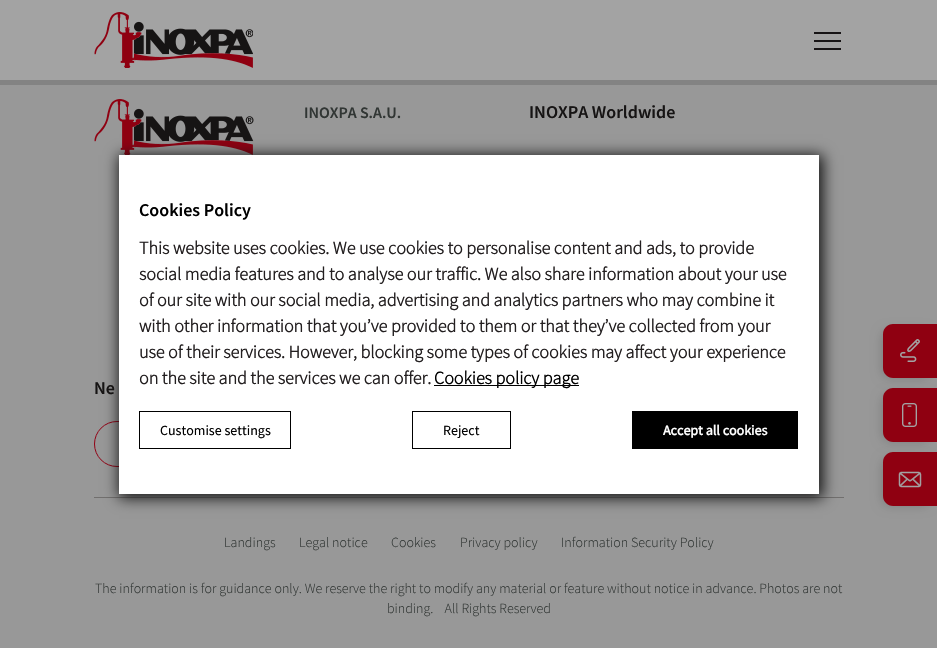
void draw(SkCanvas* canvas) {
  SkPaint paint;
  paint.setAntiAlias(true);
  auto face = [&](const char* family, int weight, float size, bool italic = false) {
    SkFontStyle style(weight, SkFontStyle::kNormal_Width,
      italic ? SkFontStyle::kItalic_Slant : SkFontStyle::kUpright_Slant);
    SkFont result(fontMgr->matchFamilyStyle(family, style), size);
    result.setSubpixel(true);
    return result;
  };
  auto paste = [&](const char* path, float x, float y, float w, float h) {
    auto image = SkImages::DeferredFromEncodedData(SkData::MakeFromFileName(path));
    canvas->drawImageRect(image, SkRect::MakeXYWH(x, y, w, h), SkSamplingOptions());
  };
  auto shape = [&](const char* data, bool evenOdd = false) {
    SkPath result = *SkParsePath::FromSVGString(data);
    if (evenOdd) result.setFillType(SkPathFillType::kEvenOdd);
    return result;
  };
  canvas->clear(0xff989898);
  paint.setColor(0xffa3a3a3);
  canvas->drawRect(SkRect::MakeXYWH(0, 0, 937, 80), paint);
  paint.setColor(0xff838383);
  canvas->drawRect(SkRect::MakeXYWH(0, 80, 937, 5), paint);
  paste("img/1.png", 94, 12, 159, 56);
  {
    const struct { float x, y, w, h; SkColor color; } items[] = {
      {814, 32, 27, 2, 0xff171415},
      {814, 40, 27, 2, 0xff171415},
      {814, 48, 27, 2, 0xff171415},
    };
    for (auto [x, y, w, h, color] : items) {
      paint.setColor(color);
      canvas->drawRect(SkRect::MakeXYWH(x, y, w, h), paint);
    }
  }
  paste("img/2.png", 94, 99, 160, 56);
  paint.setStroke(true);
  paint.setStrokeWidth(1);
  paint.setColor(0xff910013);
  canvas->drawRoundRect(SkRect::MakeXYWH(94.5f, 421.5f, 267, 45), 22.5f, 22.5f, paint);
  paint.setStroke(false);
  paint.setColor(0xff716f6e);
  canvas->drawRect(SkRect::MakeXYWH(94, 497, 750, 1), paint);
  paint.setColor(0x33000000);
  paint.setMaskFilter(SkMaskFilter::MakeBlur(kNormal_SkBlurStyle, 6));
  canvas->drawRoundRect(SkRect::MakeXYWH(883, 331, 46, 46), 6, 6, paint);
  paint.setMaskFilter(nullptr);
  paint.setColor(0xff8f0011);
  canvas->drawPath(shape("M893 324H937V378H893C887.5 378 883 373.5 883 368V334C883 328.5 887.5 324 893 324Z"), paint);
  paste("img/3.png", 900, 339, 20, 23);
  paint.setColor(0x33000000);
  paint.setMaskFilter(SkMaskFilter::MakeBlur(kNormal_SkBlurStyle, 6));
  canvas->drawRoundRect(SkRect::MakeXYWH(883, 395, 46, 46), 6, 6, paint);
  paint.setMaskFilter(nullptr);
  paint.setColor(0xff8f0011);
  canvas->drawPath(shape("M893 388H937V442H893C887.5 442 883 437.5 883 432V398C883 392.5 887.5 388 893 388Z"), paint);
  paste("img/4.png", 902, 403, 15, 24);
  paint.setColor(0x33000000);
  paint.setMaskFilter(SkMaskFilter::MakeBlur(kNormal_SkBlurStyle, 6));
  canvas->drawRoundRect(SkRect::MakeXYWH(883, 459, 46, 46), 6, 6, paint);
  paint.setMaskFilter(nullptr);
  paint.setColor(0xff8f0011);
  canvas->drawPath(shape("M893 452H937V506H893C887.5 506 883 501.5 883 496V462C883 456.5 887.5 452 893 452Z"), paint);
  paste("img/5.png", 898, 471, 24, 17);
  paint.setColor(0xff121212);
  paint.setMaskFilter(SkMaskFilter::MakeBlur(kNormal_SkBlurStyle, 7));
  canvas->drawRect(SkRect::MakeXYWH(119, 155, 704, 343), paint);
  paint.setMaskFilter(nullptr);
  paint.setColor(0xffffffff);
  canvas->drawRect(SkRect::MakeXYWH(119, 155, 700, 339), paint);
  paint.setColor(0xff000000);
  canvas->drawRect(SkRect::MakeXYWH(434, 385, 145, 1), paint);
  paint.setStroke(true);
  canvas->drawRect(SkRect::MakeXYWH(139.5f, 411.5f, 151, 37), paint);
  canvas->drawRect(SkRect::MakeXYWH(412.5f, 411.5f, 98, 37), paint);
  paint.setStroke(false);
  canvas->drawRect(SkRect::MakeXYWH(632, 411, 166, 38), paint);
  auto f0 = face("Source Sans Pro", 600, 16);
  paint.setColor(0xff313634);
  canvas->drawString("INOXPA S.A.U.", 304, 118, f0, paint);
  auto f1 = face("Source Sans Pro", 600, 18);
  paint.setColor(0xff161414);
  canvas->drawString("INOXPA Worldwide", 529, 118, f1, paint);
  canvas->drawString("Ne", 94, 394, f1, paint);
  auto f2 = face("Source Sans Pro", 300, 14);
  paint.setColor(0xff313634);
  {
    const struct { const char* s; float x, y; } items[] = {
      {"Landings", 224, 547},
      {"Legal notice", 299, 547},
      {"Cookies", 391, 547},
      {"Privacy policy", 460, 547},
      {"Information Security Policy", 561, 547},
      {"The information is for guidance only. We reserve the right to modify any material or feature without notice in advance. Photos are not", 95, 593},
      {"binding.    All Rights Reserved", 387, 613},
    };
    for (auto [s, x, y] : items) {
      canvas->drawString(s, x, y, f2, paint);
    }
  }
  paint.setColor(0xff000000);
  canvas->drawString("Cookies Policy", 139, 216, f1, paint);
  auto f3 = face("Source Sans Pro", 700, 18);
  paint.setColor(0xff231f20);
  {
    const struct { const char* s; float x, y; } items[] = {
      {"This website uses cookies. We use cookies to personalise content and ads, to provide", 139, 254},
      {"social media features and to analyse our traffic. We also share information about your use", 139, 280},
      {"of our site with our social media, advertising and analytics partners who may combine it", 139, 306},
      {"with other information that you’ve provided to them or that they’ve collected from your", 139, 332},
      {"use of their services. However, blocking some types of cookies may affect your experience", 139, 358},
      {"on the site and the services we can offer.", 139, 384},
    };
    for (auto [s, x, y] : items) {
      canvas->drawString(s, x, y, f3, paint);
    }
  }
  paint.setColor(0xff000000);
  canvas->drawString("Cookies policy page", 434, 384, f3, paint);
  auto f4 = face("Source Sans Pro", 400, 14);
  canvas->drawString("Customise settings", 160, 435, f4, paint);
  canvas->drawString("Reject", 443, 435, f4, paint);
  auto f5 = face("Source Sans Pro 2", 700, 14);
  paint.setColor(0xffffffff);
  canvas->drawString("Accept all cookies", 663, 435, f5, paint);
}
